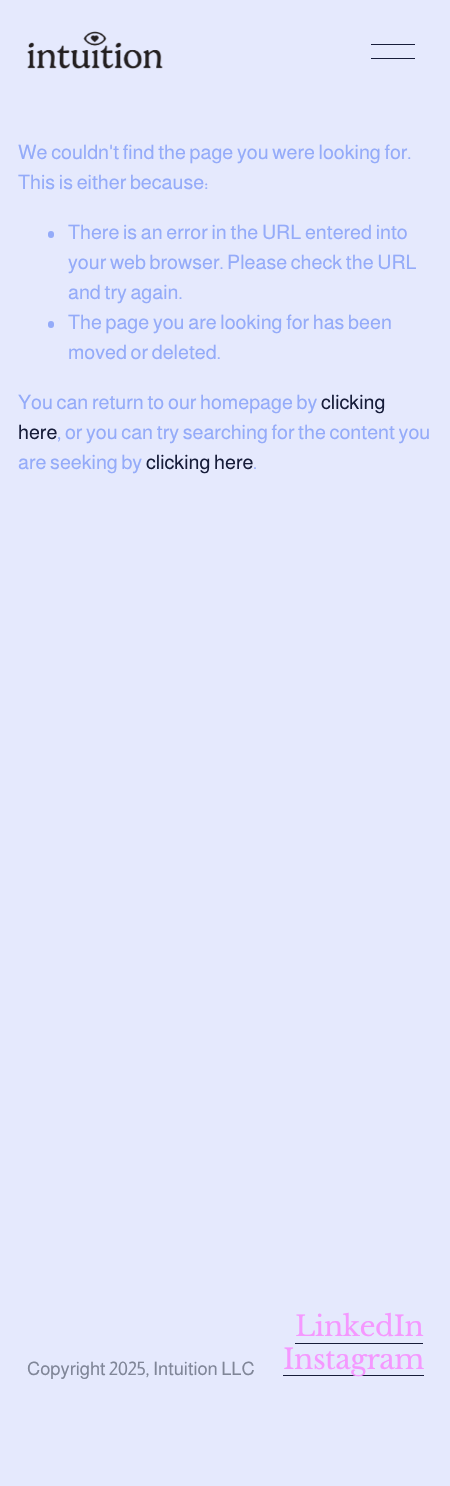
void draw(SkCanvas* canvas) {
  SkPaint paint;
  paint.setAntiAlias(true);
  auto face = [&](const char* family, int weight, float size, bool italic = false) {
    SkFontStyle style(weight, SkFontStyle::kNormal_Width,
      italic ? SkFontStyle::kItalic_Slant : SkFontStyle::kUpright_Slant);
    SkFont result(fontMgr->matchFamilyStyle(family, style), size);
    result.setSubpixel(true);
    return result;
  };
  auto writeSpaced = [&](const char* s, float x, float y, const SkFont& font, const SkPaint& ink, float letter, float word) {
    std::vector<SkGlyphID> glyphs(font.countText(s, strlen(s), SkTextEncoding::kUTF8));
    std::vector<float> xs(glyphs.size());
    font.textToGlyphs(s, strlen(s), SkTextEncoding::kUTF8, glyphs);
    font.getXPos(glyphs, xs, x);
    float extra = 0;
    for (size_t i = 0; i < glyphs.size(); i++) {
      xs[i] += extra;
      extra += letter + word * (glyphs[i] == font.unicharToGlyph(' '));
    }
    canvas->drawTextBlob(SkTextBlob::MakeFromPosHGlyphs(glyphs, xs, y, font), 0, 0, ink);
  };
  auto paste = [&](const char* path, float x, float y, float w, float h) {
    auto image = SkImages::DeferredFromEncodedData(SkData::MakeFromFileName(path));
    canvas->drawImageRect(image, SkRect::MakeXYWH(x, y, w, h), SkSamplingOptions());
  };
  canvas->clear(0xffe5e9fd);
  paste("img/1.png", 27, 31, 136, 38);
  paint.setColor(0xff171d3a);
  canvas->drawRect(SkRect::MakeXYWH(371, 44, 44, 1), paint);
  canvas->drawRect(SkRect::MakeXYWH(371, 58, 44, 1), paint);
  paint.setColor(0xff94abf9);
  canvas->drawRoundRect(SkRect::MakeXYWH(48, 231, 6, 7), 3, 3, paint);
  canvas->drawRoundRect(SkRect::MakeXYWH(48, 321, 6, 7), 3, 3, paint);
  paint.setColor(0xff171d3a);
  canvas->drawRect(SkRect::MakeXYWH(295, 1343, 128, 1), paint);
  canvas->drawRect(SkRect::MakeXYWH(283, 1375, 141, 1), paint);
  auto f0 = face("Almarai", 400, 20);
  paint.setColor(0xff94abf9);
  {
    const struct { const char* s; float x, y; } items[] = {
      {"We couldn't find the page you were looking for.", 18, 159},
      {"This is either because:", 18, 189},
      {"There is an error in the URL entered into", 68, 239},
      {"your web browser. Please check the URL", 68, 269},
      {"and try again.", 68, 299},
      {"The page you are looking for has been", 68, 329},
      {"moved or deleted.", 68, 359},
      {"You can return to our homepage by", 18, 409},
    };
    for (auto [s, x, y] : items) {
      canvas->drawString(s, x, y, f0, paint);
    }
  }
  paint.setColor(0xff171d3a);
  canvas->drawString("clicking", 321, 409, f0, paint);
  canvas->drawString("here", 18, 439, f0, paint);
  paint.setColor(0xff94abf9);
  canvas->drawString(", or you can try searching for the content you", 57, 439, f0, paint);
  canvas->drawString("are seeking by", 18, 469, f0, paint);
  paint.setColor(0xff171d3a);
  canvas->drawString("clicking here", 146, 469, f0, paint);
  paint.setColor(0xff94abf9);
  canvas->drawString(".", 253, 469, f0, paint);
  auto f1 = face("Almarai", 400, 18.6f);
  paint.setColor(0xff808698);
  canvas->drawString("Copyright 2025, Intuition LLC", 27, 1375, f1, paint);
  auto f2 = face("Libre Baskerville", 400, 28);
  paint.setColor(0xfff598ff);
  writeSpaced("LinkedIn", 295, 1336, f2, paint, -0.5f, 0);
  writeSpaced("Instagram", 283, 1369, f2, paint, -0.5f, 0);
}
